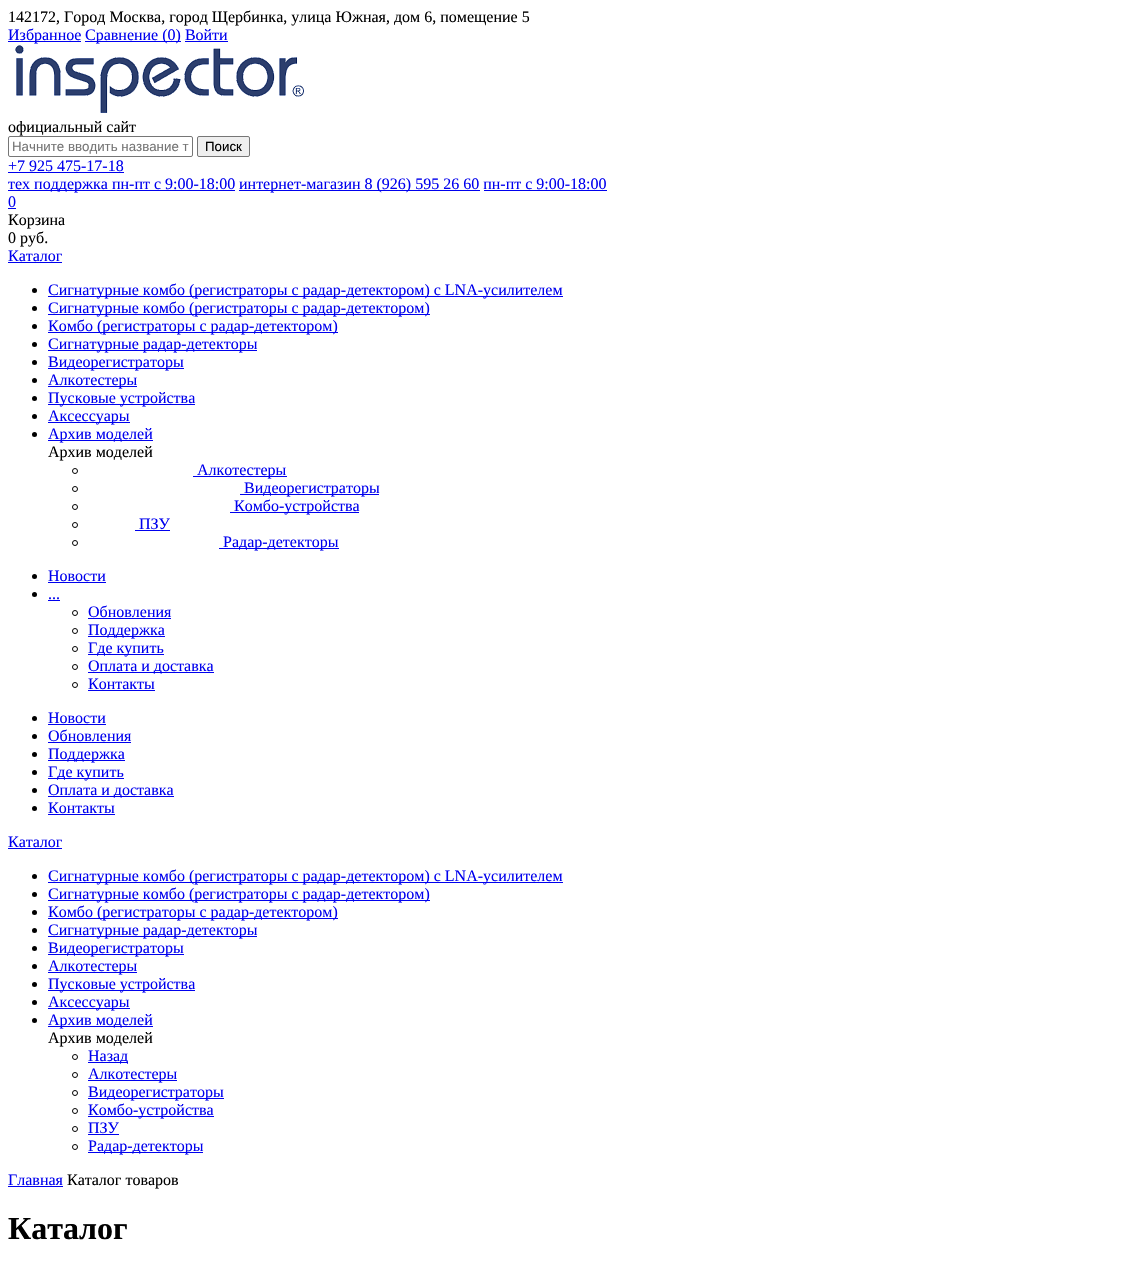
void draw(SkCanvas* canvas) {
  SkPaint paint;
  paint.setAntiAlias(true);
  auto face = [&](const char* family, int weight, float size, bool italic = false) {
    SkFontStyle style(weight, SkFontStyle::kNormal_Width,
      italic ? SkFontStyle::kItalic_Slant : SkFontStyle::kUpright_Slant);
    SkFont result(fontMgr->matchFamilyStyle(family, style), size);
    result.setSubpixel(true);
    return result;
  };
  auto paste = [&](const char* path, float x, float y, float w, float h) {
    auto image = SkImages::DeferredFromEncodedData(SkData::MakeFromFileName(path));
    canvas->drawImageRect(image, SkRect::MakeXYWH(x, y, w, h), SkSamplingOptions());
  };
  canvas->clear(0xffffffff);
  {
    const struct { float x, y, w, h; SkColor color; } items[] = {
      {8, 41, 73, 1, 0xff0000ee},
      {85, 41, 96, 1, 0xff0000ee},
      {185, 41, 43, 1, 0xff0000ee},
    };
    for (auto [x, y, w, h, color] : items) {
      paint.setColor(color);
      canvas->drawRect(SkRect::MakeXYWH(x, y, w, h), paint);
    }
  }
  paste("img/1.png", 15, 45, 289, 68);
  paint.setStroke(true);
  paint.setStrokeWidth(1);
  paint.setColor(0xff767676);
  canvas->drawRoundRect(SkRect::MakeXYWH(8.5f, 136.5f, 184, 20), 1.5f, 1.5f, paint);
  paint.setStroke(false);
  paint.setColor(0xffefefef);
  canvas->drawRoundRect(SkRect::MakeXYWH(197.5f, 136.5f, 52, 20), 1.5f, 1.5f, paint);
  paint.setStroke(true);
  paint.setColor(0xff767676);
  canvas->drawRoundRect(SkRect::MakeXYWH(197.5f, 136.5f, 52, 20), 1.5f, 1.5f, paint);
  paint.setStroke(false);
  {
    const struct { float x, y, w, h; SkColor color; } items[] = {
      {8, 172, 116, 1, 0xff0000ee},
      {8, 190, 227, 1, 0xff0000ee},
      {239, 190, 241, 1, 0xff0000ee},
      {484, 190, 123, 1, 0xff0000ee},
      {8, 208, 8, 1, 0xff0000ee},
      {8, 262, 54, 1, 0xff0000ee},
    };
    for (auto [x, y, w, h, color] : items) {
      paint.setColor(color);
      canvas->drawRect(SkRect::MakeXYWH(x, y, w, h), paint);
    }
  }
  paint.setColor(0xff000000);
  canvas->drawCircle(34.5f, 290.5f, 2.5f, paint);
  paint.setColor(0xff0000ee);
  canvas->drawRect(SkRect::MakeXYWH(48, 296, 515, 1), paint);
  paint.setColor(0xff000000);
  canvas->drawCircle(34.5f, 308.5f, 2.5f, paint);
  paint.setColor(0xff0000ee);
  canvas->drawRect(SkRect::MakeXYWH(48, 314, 382, 1), paint);
  paint.setColor(0xff000000);
  canvas->drawCircle(34.5f, 326.5f, 2.5f, paint);
  paint.setColor(0xff0000ee);
  canvas->drawRect(SkRect::MakeXYWH(48, 332, 290, 1), paint);
  paint.setColor(0xff000000);
  canvas->drawCircle(34.5f, 344.5f, 2.5f, paint);
  paint.setColor(0xff0000ee);
  canvas->drawRect(SkRect::MakeXYWH(48, 350, 209, 1), paint);
  paint.setColor(0xff000000);
  canvas->drawCircle(34.5f, 362.5f, 2.5f, paint);
  paint.setColor(0xff0000ee);
  canvas->drawRect(SkRect::MakeXYWH(48, 368, 136, 1), paint);
  paint.setColor(0xff000000);
  canvas->drawCircle(34.5f, 380.5f, 2.5f, paint);
  paint.setColor(0xff0000ee);
  canvas->drawRect(SkRect::MakeXYWH(48, 386, 89, 1), paint);
  paint.setColor(0xff000000);
  canvas->drawCircle(34.5f, 398.5f, 2.5f, paint);
  paint.setColor(0xff0000ee);
  canvas->drawRect(SkRect::MakeXYWH(48, 404, 147, 1), paint);
  paint.setColor(0xff000000);
  canvas->drawCircle(34.5f, 416.5f, 2.5f, paint);
  paint.setColor(0xff0000ee);
  canvas->drawRect(SkRect::MakeXYWH(48, 422, 82, 1), paint);
  paint.setColor(0xff000000);
  canvas->drawCircle(34.5f, 434.5f, 2.5f, paint);
  paint.setColor(0xff0000ee);
  canvas->drawRect(SkRect::MakeXYWH(48, 440, 105, 1), paint);
  paint.setStroke(true);
  paint.setColor(0xff000000);
  canvas->drawCircle(75, 471, 2.5f, paint);
  paint.setStroke(false);
  paint.setColor(0xff0000ee);
  canvas->drawRect(SkRect::MakeXYWH(193, 476, 94, 1), paint);
  paint.setStroke(true);
  paint.setColor(0xff000000);
  canvas->drawCircle(75, 489, 2.5f, paint);
  paint.setStroke(false);
  paint.setColor(0xff0000ee);
  canvas->drawRect(SkRect::MakeXYWH(240, 494, 139, 1), paint);
  paint.setStroke(true);
  paint.setColor(0xff000000);
  canvas->drawCircle(75, 507, 2.5f, paint);
  paint.setStroke(false);
  paint.setColor(0xff0000ee);
  canvas->drawRect(SkRect::MakeXYWH(230, 512, 129, 1), paint);
  paint.setStroke(true);
  paint.setColor(0xff000000);
  canvas->drawCircle(75, 525, 2.5f, paint);
  paint.setStroke(false);
  paint.setColor(0xff0000ee);
  canvas->drawRect(SkRect::MakeXYWH(135, 530, 35, 1), paint);
  paint.setStroke(true);
  paint.setColor(0xff000000);
  canvas->drawCircle(75, 543, 2.5f, paint);
  paint.setStroke(false);
  paint.setColor(0xff0000ee);
  canvas->drawRect(SkRect::MakeXYWH(219, 548, 120, 1), paint);
  paint.setColor(0xff000000);
  canvas->drawCircle(34.5f, 576.5f, 2.5f, paint);
  paint.setColor(0xff0000ee);
  canvas->drawRect(SkRect::MakeXYWH(48, 582, 58, 1), paint);
  paint.setColor(0xff000000);
  canvas->drawCircle(34.5f, 594.5f, 2.5f, paint);
  paint.setColor(0xff0000ee);
  canvas->drawRect(SkRect::MakeXYWH(48, 600, 12, 1), paint);
  paint.setStroke(true);
  paint.setColor(0xff000000);
  canvas->drawCircle(75, 613, 2.5f, paint);
  paint.setStroke(false);
  paint.setColor(0xff0000ee);
  canvas->drawRect(SkRect::MakeXYWH(88, 618, 83, 1), paint);
  paint.setStroke(true);
  paint.setColor(0xff000000);
  canvas->drawCircle(75, 631, 2.5f, paint);
  paint.setStroke(false);
  paint.setColor(0xff0000ee);
  canvas->drawRect(SkRect::MakeXYWH(88, 636, 77, 1), paint);
  paint.setStroke(true);
  paint.setColor(0xff000000);
  canvas->drawCircle(75, 649, 2.5f, paint);
  paint.setStroke(false);
  paint.setColor(0xff0000ee);
  canvas->drawRect(SkRect::MakeXYWH(88, 654, 76, 1), paint);
  paint.setStroke(true);
  paint.setColor(0xff000000);
  canvas->drawCircle(75, 667, 2.5f, paint);
  paint.setStroke(false);
  paint.setColor(0xff0000ee);
  canvas->drawRect(SkRect::MakeXYWH(88, 672, 126, 1), paint);
  paint.setStroke(true);
  paint.setColor(0xff000000);
  canvas->drawCircle(75, 685, 2.5f, paint);
  paint.setStroke(false);
  paint.setColor(0xff0000ee);
  canvas->drawRect(SkRect::MakeXYWH(88, 690, 67, 1), paint);
  paint.setColor(0xff000000);
  canvas->drawCircle(34.5f, 718.5f, 2.5f, paint);
  paint.setColor(0xff0000ee);
  canvas->drawRect(SkRect::MakeXYWH(48, 724, 58, 1), paint);
  paint.setColor(0xff000000);
  canvas->drawCircle(34.5f, 736.5f, 2.5f, paint);
  paint.setColor(0xff0000ee);
  canvas->drawRect(SkRect::MakeXYWH(48, 742, 83, 1), paint);
  paint.setColor(0xff000000);
  canvas->drawCircle(34.5f, 754.5f, 2.5f, paint);
  paint.setColor(0xff0000ee);
  canvas->drawRect(SkRect::MakeXYWH(48, 760, 77, 1), paint);
  paint.setColor(0xff000000);
  canvas->drawCircle(34.5f, 772.5f, 2.5f, paint);
  paint.setColor(0xff0000ee);
  canvas->drawRect(SkRect::MakeXYWH(48, 778, 76, 1), paint);
  paint.setColor(0xff000000);
  canvas->drawCircle(34.5f, 790.5f, 2.5f, paint);
  paint.setColor(0xff0000ee);
  canvas->drawRect(SkRect::MakeXYWH(48, 796, 126, 1), paint);
  paint.setColor(0xff000000);
  canvas->drawCircle(34.5f, 808.5f, 2.5f, paint);
  paint.setColor(0xff0000ee);
  canvas->drawRect(SkRect::MakeXYWH(48, 814, 67, 1), paint);
  canvas->drawRect(SkRect::MakeXYWH(8, 848, 54, 1), paint);
  paint.setColor(0xff000000);
  canvas->drawCircle(34.5f, 876.5f, 2.5f, paint);
  paint.setColor(0xff0000ee);
  canvas->drawRect(SkRect::MakeXYWH(48, 882, 515, 1), paint);
  paint.setColor(0xff000000);
  canvas->drawCircle(34.5f, 894.5f, 2.5f, paint);
  paint.setColor(0xff0000ee);
  canvas->drawRect(SkRect::MakeXYWH(48, 900, 382, 1), paint);
  paint.setColor(0xff000000);
  canvas->drawCircle(34.5f, 912.5f, 2.5f, paint);
  paint.setColor(0xff0000ee);
  canvas->drawRect(SkRect::MakeXYWH(48, 918, 290, 1), paint);
  paint.setColor(0xff000000);
  canvas->drawCircle(34.5f, 930.5f, 2.5f, paint);
  paint.setColor(0xff0000ee);
  canvas->drawRect(SkRect::MakeXYWH(48, 936, 209, 1), paint);
  paint.setColor(0xff000000);
  canvas->drawCircle(34.5f, 948.5f, 2.5f, paint);
  paint.setColor(0xff0000ee);
  canvas->drawRect(SkRect::MakeXYWH(48, 954, 136, 1), paint);
  paint.setColor(0xff000000);
  canvas->drawCircle(34.5f, 966.5f, 2.5f, paint);
  paint.setColor(0xff0000ee);
  canvas->drawRect(SkRect::MakeXYWH(48, 972, 89, 1), paint);
  paint.setColor(0xff000000);
  canvas->drawCircle(34.5f, 984.5f, 2.5f, paint);
  paint.setColor(0xff0000ee);
  canvas->drawRect(SkRect::MakeXYWH(48, 990, 147, 1), paint);
  paint.setColor(0xff000000);
  canvas->drawCircle(34.5f, 1002.5f, 2.5f, paint);
  paint.setColor(0xff0000ee);
  canvas->drawRect(SkRect::MakeXYWH(48, 1008, 82, 1), paint);
  paint.setColor(0xff000000);
  canvas->drawCircle(34.5f, 1020.5f, 2.5f, paint);
  paint.setColor(0xff0000ee);
  canvas->drawRect(SkRect::MakeXYWH(48, 1026, 105, 1), paint);
  paint.setStroke(true);
  paint.setColor(0xff000000);
  canvas->drawCircle(75, 1057, 2.5f, paint);
  paint.setStroke(false);
  paint.setColor(0xff0000ee);
  canvas->drawRect(SkRect::MakeXYWH(88, 1062, 40, 1), paint);
  paint.setStroke(true);
  paint.setColor(0xff000000);
  canvas->drawCircle(75, 1075, 2.5f, paint);
  paint.setStroke(false);
  paint.setColor(0xff0000ee);
  canvas->drawRect(SkRect::MakeXYWH(88, 1080, 89, 1), paint);
  paint.setStroke(true);
  paint.setColor(0xff000000);
  canvas->drawCircle(75, 1093, 2.5f, paint);
  paint.setStroke(false);
  paint.setColor(0xff0000ee);
  canvas->drawRect(SkRect::MakeXYWH(88, 1098, 136, 1), paint);
  paint.setStroke(true);
  paint.setColor(0xff000000);
  canvas->drawCircle(75, 1111, 2.5f, paint);
  paint.setStroke(false);
  paint.setColor(0xff0000ee);
  canvas->drawRect(SkRect::MakeXYWH(88, 1116, 126, 1), paint);
  paint.setStroke(true);
  paint.setColor(0xff000000);
  canvas->drawCircle(75, 1129, 2.5f, paint);
  paint.setStroke(false);
  paint.setColor(0xff0000ee);
  canvas->drawRect(SkRect::MakeXYWH(88, 1134, 31, 1), paint);
  paint.setStroke(true);
  paint.setColor(0xff000000);
  canvas->drawCircle(75, 1147, 2.5f, paint);
  paint.setStroke(false);
  paint.setColor(0xff0000ee);
  canvas->drawRect(SkRect::MakeXYWH(88, 1152, 115, 1), paint);
  canvas->drawRect(SkRect::MakeXYWH(8, 1186, 55, 1), paint);
  auto f0 = face("Liberation Serif", 400, 16);
  paint.setColor(0xff000000);
  canvas->drawString("142172, Город Москва, город Щербинка, улица Южная, дом 6, помещение 5", 8, 22, f0, paint);
  paint.setColor(0xff0000ee);
  canvas->drawString("Избранное", 8, 40, f0, paint);
  canvas->drawString("Сравнение (0) Войти", 85, 40, f0, paint);
  paint.setColor(0xff000000);
  canvas->drawString("официальный сайт", 8, 132, f0, paint);
  auto f1 = face("Liberation Sans", 400, 13.3f);
  paint.setColor(0xff757575);
  canvas->drawString("Начните вводить название т", 12, 151, f1, paint);
  paint.setColor(0xff000000);
  canvas->drawString("Поиск", 205, 151, f1, paint);
  paint.setColor(0xff0000ee);
  {
    const struct { const char* s; float x, y; } items[] = {
      {"+7 925 475-17-18", 8, 171},
      {"тех поддержка пн-пт с 9:00-18:00", 8, 189},
      {"интернет-магазин 8 (926) 595 26 60 пн-пт с 9:00-18:00", 239, 189},
      {"0", 8, 207},
    };
    for (auto [s, x, y] : items) {
      canvas->drawString(s, x, y, f0, paint);
    }
  }
  paint.setColor(0xff000000);
  canvas->drawString("Корзина", 8, 225, f0, paint);
  canvas->drawString("0 руб.", 8, 243, f0, paint);
  paint.setColor(0xff0000ee);
  {
    const struct { const char* s; float x, y; } items[] = {
      {"Каталог", 8, 261},
      {"Сигнатурные комбо (регистраторы с радар-детектором) с LNA-усилителем", 48, 295},
      {"Сигнатурные комбо (регистраторы с радар-детектором)", 48, 313},
      {"Комбо (регистраторы с радар-детектором)", 48, 331},
      {"Сигнатурные радар-детекторы", 48, 349},
      {"Видеорегистраторы", 48, 367},
      {"Алкотестеры", 48, 385},
      {"Пусковые устройства", 48, 403},
      {"Аксессуары", 48, 421},
      {"Архив моделей", 48, 439},
    };
    for (auto [s, x, y] : items) {
      canvas->drawString(s, x, y, f0, paint);
    }
  }
  paint.setColor(0xff000000);
  canvas->drawString("Архив моделей", 48, 457, f0, paint);
  paint.setColor(0xff0000ee);
  {
    const struct { const char* s; float x, y; } items[] = {
      {"Алкотестеры", 197, 475},
      {"Видеорегистраторы", 244, 493},
      {"Комбо-устройства", 234, 511},
      {"ПЗУ", 139, 529},
      {"Радар-детекторы", 223, 547},
      {"Новости", 48, 581},
      {"...", 48, 599},
      {"Обновления", 88, 617},
      {"Поддержка", 88, 635},
      {"Где купить", 88, 653},
      {"Оплата и доставка", 88, 671},
      {"Контакты", 88, 689},
      {"Новости", 48, 723},
      {"Обновления", 48, 741},
      {"Поддержка", 48, 759},
      {"Где купить", 48, 777},
      {"Оплата и доставка", 48, 795},
      {"Контакты", 48, 813},
      {"Каталог", 8, 847},
      {"Сигнатурные комбо (регистраторы с радар-детектором) с LNA-усилителем", 48, 881},
      {"Сигнатурные комбо (регистраторы с радар-детектором)", 48, 899},
      {"Комбо (регистраторы с радар-детектором)", 48, 917},
      {"Сигнатурные радар-детекторы", 48, 935},
      {"Видеорегистраторы", 48, 953},
      {"Алкотестеры", 48, 971},
      {"Пусковые устройства", 48, 989},
      {"Аксессуары", 48, 1007},
      {"Архив моделей", 48, 1025},
    };
    for (auto [s, x, y] : items) {
      canvas->drawString(s, x, y, f0, paint);
    }
  }
  paint.setColor(0xff000000);
  canvas->drawString("Архив моделей", 48, 1043, f0, paint);
  paint.setColor(0xff0000ee);
  {
    const struct { const char* s; float x, y; } items[] = {
      {"Назад", 88, 1061},
      {"Алкотестеры", 88, 1079},
      {"Видеорегистраторы", 88, 1097},
      {"Комбо-устройства", 88, 1115},
      {"ПЗУ", 88, 1133},
      {"Радар-детекторы", 88, 1151},
      {"Главная", 8, 1185},
    };
    for (auto [s, x, y] : items) {
      canvas->drawString(s, x, y, f0, paint);
    }
  }
  paint.setColor(0xff000000);
  canvas->drawString("Каталог товаров", 67, 1185, f0, paint);
  auto f2 = face("Liberation Serif", 700, 32);
  canvas->drawString("Каталог", 8, 1239, f2, paint);
}
